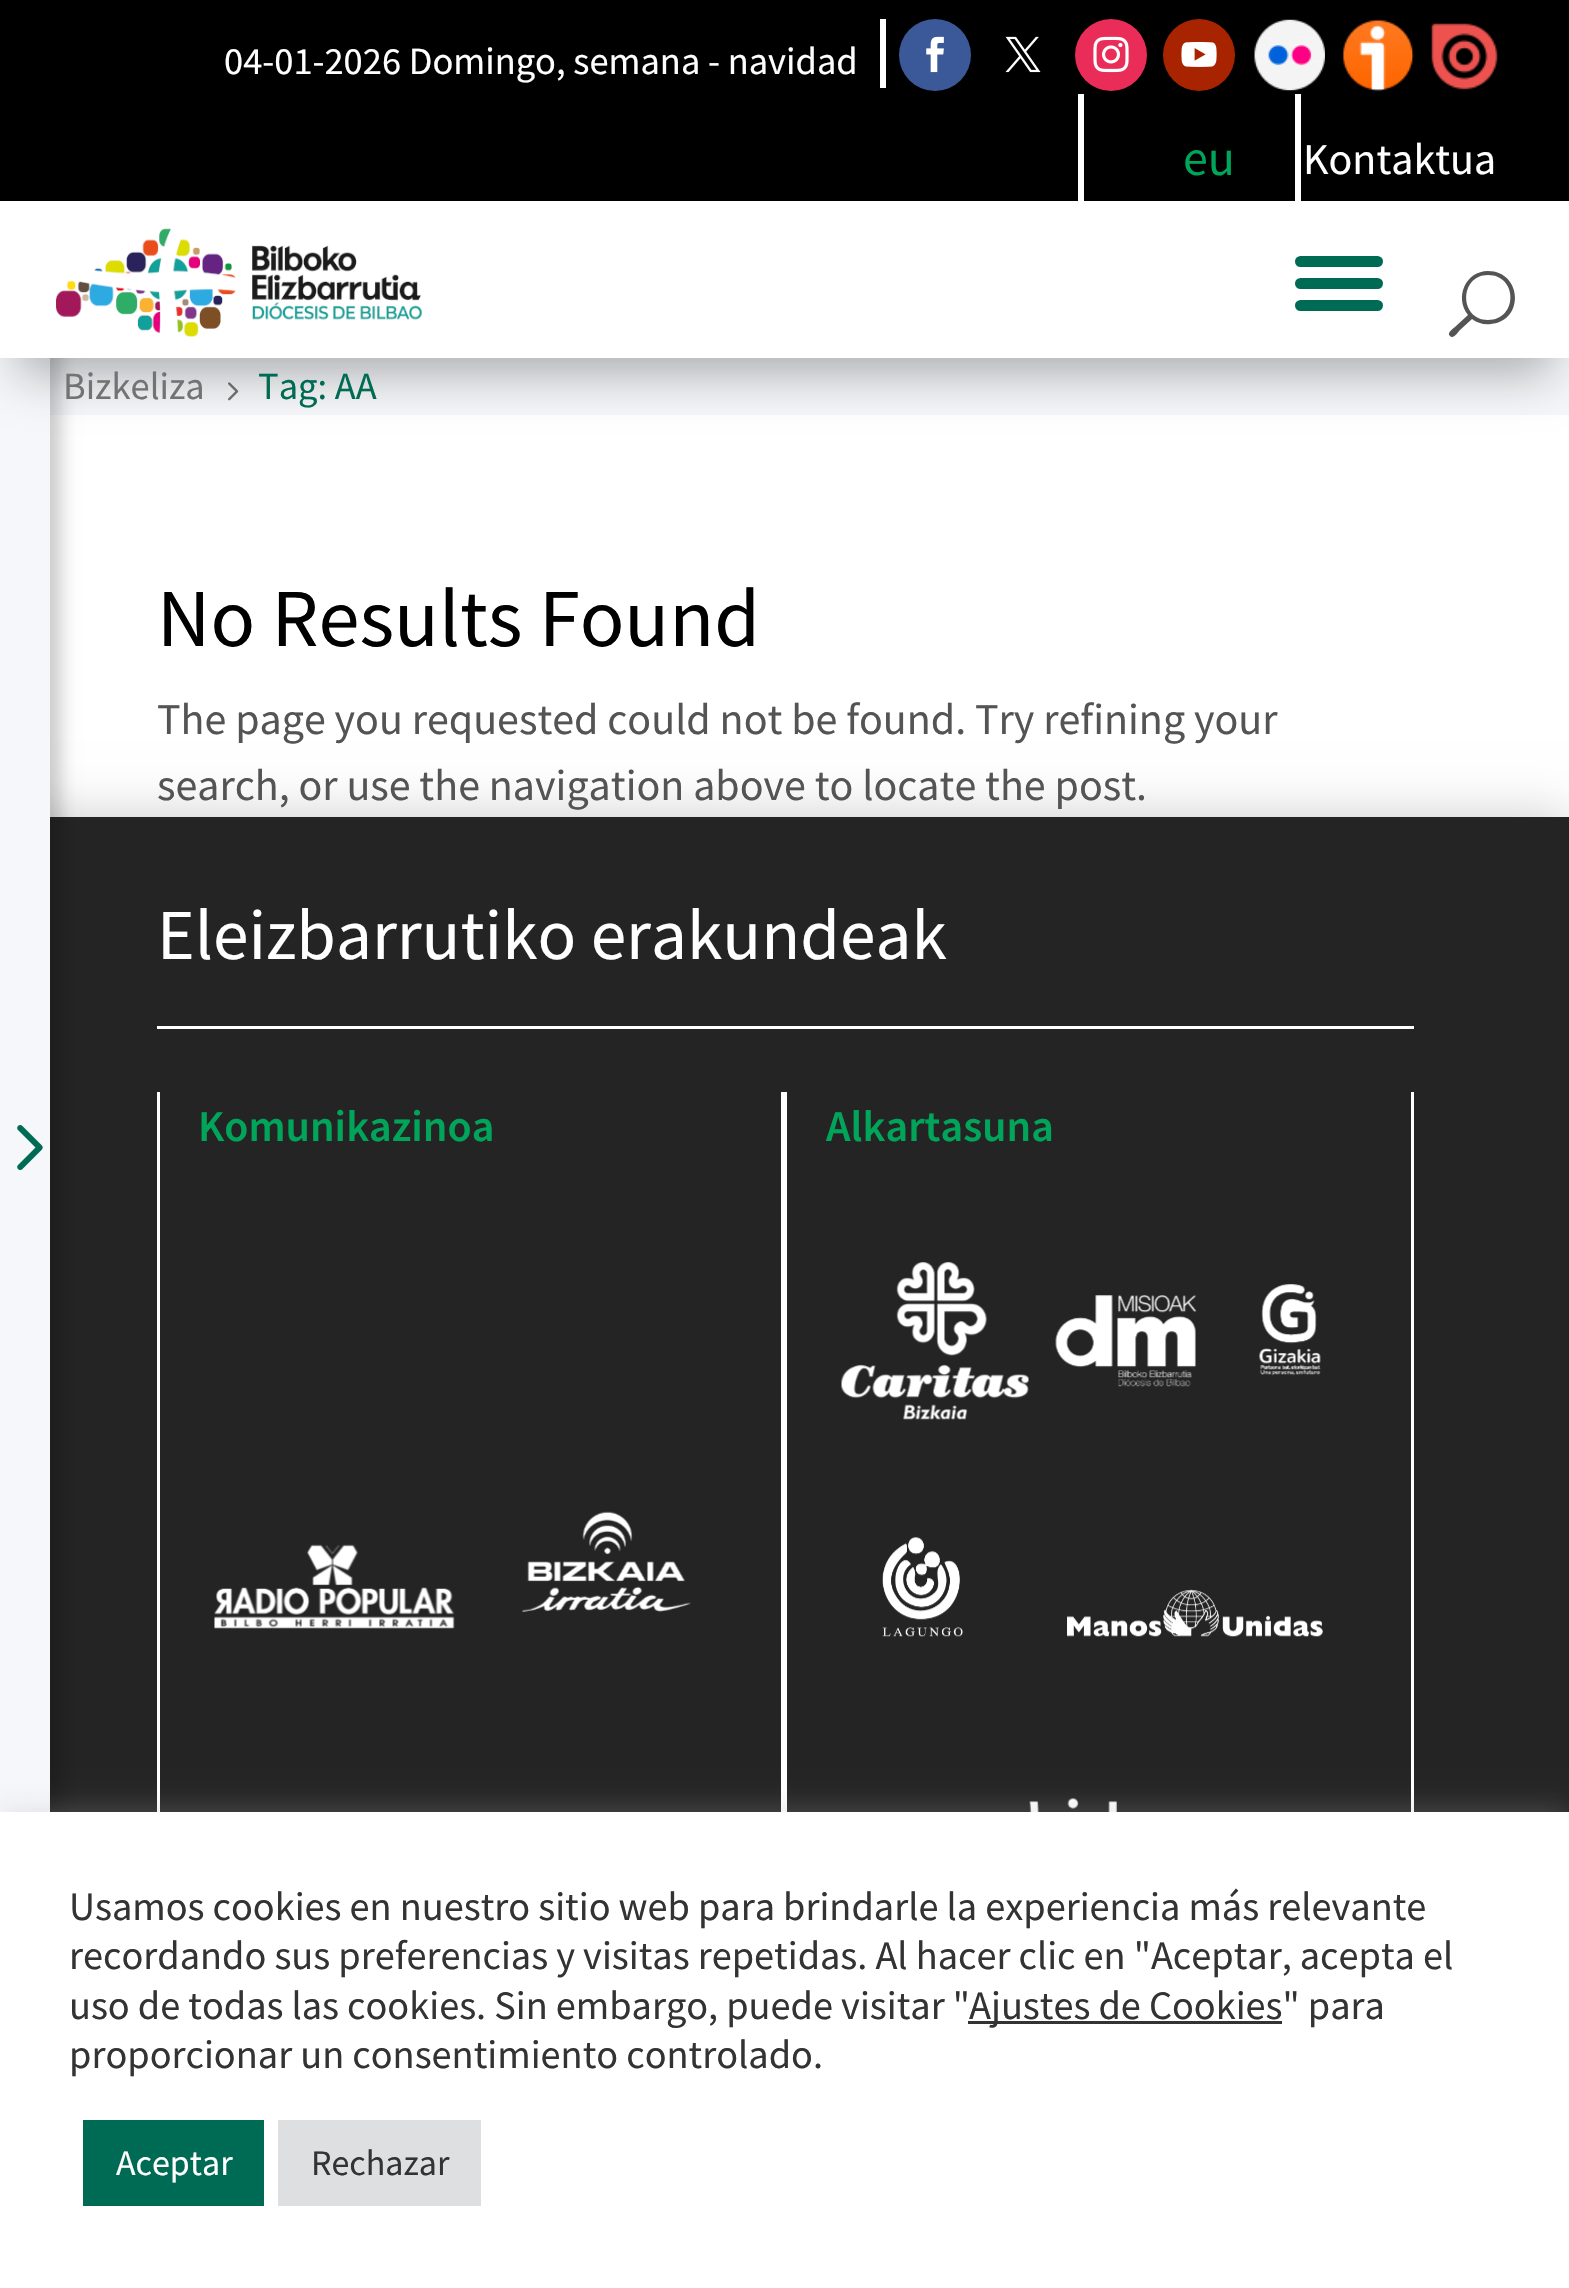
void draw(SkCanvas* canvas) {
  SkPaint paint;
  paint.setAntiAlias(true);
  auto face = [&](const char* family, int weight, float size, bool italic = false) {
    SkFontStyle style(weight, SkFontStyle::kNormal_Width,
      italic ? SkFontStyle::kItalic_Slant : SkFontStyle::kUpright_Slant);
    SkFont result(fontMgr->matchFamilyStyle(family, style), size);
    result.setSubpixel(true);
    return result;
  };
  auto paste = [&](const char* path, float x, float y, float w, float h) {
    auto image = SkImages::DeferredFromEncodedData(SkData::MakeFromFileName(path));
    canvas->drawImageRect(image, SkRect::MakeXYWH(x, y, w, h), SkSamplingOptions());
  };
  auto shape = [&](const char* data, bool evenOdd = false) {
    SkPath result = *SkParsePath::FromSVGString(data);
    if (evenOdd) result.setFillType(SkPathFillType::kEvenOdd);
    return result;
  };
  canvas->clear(0xffffffff);
  paint.setColor(0xfff5f7fa);
  canvas->drawRect(SkRect::MakeXYWH(50, 358, 1519, 57), paint);
  paint.setColor(0x33000000);
  paint.setMaskFilter(SkMaskFilter::MakeBlur(kNormal_SkBlurStyle, 25));
  canvas->drawRect(SkRect::MakeXYWH(0, 817, 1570, 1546), paint);
  paint.setMaskFilter(nullptr);
  paint.setColor(0xff242424);
  canvas->drawRect(SkRect::MakeXYWH(50, 817, 1519, 995), paint);
  paint.setColor(0x33000000);
  paint.setMaskFilter(SkMaskFilter::MakeBlur(kNormal_SkBlurStyle, 8));
  canvas->drawRect(SkRect::MakeXYWH(-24, -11, 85, 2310), paint);
  paint.setMaskFilter(nullptr);
  paint.setColor(0xfff5f7fa);
  canvas->drawRect(SkRect::MakeXYWH(0, 358, 50, 1454), paint);
  paste("img/1.png", 17, 1125, 26, 46);
  paint.setColor(0xff000000);
  canvas->drawRect(SkRect::MakeXYWH(0, 0, 1569, 201), paint);
  paint.setColor(0xffffffff);
  canvas->drawRect(SkRect::MakeXYWH(880, 19, 6, 69), paint);
  paint.setColor(0xff3b5998);
  canvas->drawCircle(935, 55, 36, paint);
  paste("img/2.png", 926, 36, 18, 37);
  paste("img/3.png", 1005, 36, 36, 37);
  paint.setColor(0xffea2c59);
  canvas->drawCircle(1111, 55, 36, paint);
  paste("img/4.png", 1093, 36, 36, 37);
  paint.setColor(0xffa82400);
  canvas->drawCircle(1199, 55, 36, paint);
  paste("img/5.png", 1181, 41, 36, 26);
  paste("img/6.png", 1254, 19, 71, 72);
  paste("img/7.png", 1342, 19, 72, 73);
  paste("img/8.png", 1431, 23, 67, 67);
  paint.setColor(0xffffffff);
  canvas->drawRect(SkRect::MakeXYWH(1295, 94, 6, 107), paint);
  canvas->drawRect(SkRect::MakeXYWH(1078, 94, 6, 107), paint);
  paste("img/10.png", 228, 382, 11, 19);
  paint.setColor(0x4d000000);
  paint.setMaskFilter(SkMaskFilter::MakeBlur(kNormal_SkBlurStyle, 25));
  canvas->drawRect(SkRect::MakeXYWH(17, 250, 1537, 124), paint);
  paint.setMaskFilter(nullptr);
  paint.setColor(0xffffffff);
  canvas->drawRect(SkRect::MakeXYWH(0, 201, 1569, 157), paint);
  paste("img/9.png", 55, 228, 368, 109);
  paint.setColor(0xff006b54);
  canvas->drawRoundRect(SkRect::MakeXYWH(1295, 256, 88, 11), 5.5f, 5.5f, paint);
  canvas->drawRoundRect(SkRect::MakeXYWH(1295, 278, 88, 11), 5.5f, 5.5f, paint);
  canvas->drawRoundRect(SkRect::MakeXYWH(1295, 300, 88, 11), 5.5f, 5.5f, paint);
  paint.setColor(0xff545454);
  canvas->drawPath(shape("M1488 271C1466 271 1454 297 1468 315L1456 326C1454 328 1446 333 1450 336C1453 340 1458 332 1460 330L1472 319C1477 323 1484 325 1491 324C1525 321 1522 271 1488 271ZM1488 320C1459 320 1459 275 1488 275C1518 275 1518 320 1488 320Z"), paint);
  {
    const struct { float x, y, w, h; SkColor color; } items[] = {
      {157, 1026, 1257, 3, 0xffffffff},
      {781, 1092, 6, 720, 0xffffffff},
      {157, 1092, 3, 720, 0xffffffff},
    };
    for (auto [x, y, w, h, color] : items) {
      paint.setColor(color);
      canvas->drawRect(SkRect::MakeXYWH(x, y, w, h), paint);
    }
  }
  paste("img/11.png", 214, 1544, 241, 85);
  paste("img/12.png", 522, 1511, 169, 101);
  canvas->drawRect(SkRect::MakeXYWH(1411, 1092, 3, 720), paint);
  paste("img/13.png", 841, 1262, 188, 158);
  paste("img/14.png", 1055, 1295, 142, 92);
  paste("img/15.png", 1259, 1284, 62, 92);
  paste("img/16.png", 882, 1537, 81, 100);
  paste("img/17.png", 1067, 1589, 256, 48);
  paste("img/18.png", 1029, 1798, 88, 14);
  paint.setColor(0x4dacabab);
  paint.setMaskFilter(SkMaskFilter::MakeBlur(kNormal_SkBlurStyle, 14));
  canvas->drawRect(SkRect::MakeXYWH(0, 1810, 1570, 475), paint);
  paint.setMaskFilter(nullptr);
  {
    const struct { float x, y, w, h; SkColor color; } items[] = {
      {0, 1812, 1569, 476, 0xffffffff},
      {968, 2021, 314, 3, 0xff333333},
      {83, 2120, 181, 86, 0xff006b54},
      {278, 2120, 203, 86, 0xffdedfe0},
    };
    for (auto [x, y, w, h, color] : items) {
      paint.setColor(color);
      canvas->drawRect(SkRect::MakeXYWH(x, y, w, h), paint);
    }
  }
  auto f0 = face("Source Sans Pro", 400, 38.5f);
  paint.setColor(0xffffffff);
  canvas->drawString("04-01-2026 Domingo, semana - navidad", 224, 74, f0, paint);
  auto f1 = face("Source Sans Pro", 400, 50);
  paint.setColor(0xff00a55a);
  canvas->drawString("eu", 1183, 175, f1, paint);
  auto f2 = face("Source Sans Pro", 400, 44);
  paint.setColor(0xffffffff);
  canvas->drawString("Kontaktua", 1303, 174, f2, paint);
  paint.setColor(0xff737373);
  canvas->drawString("Bizkeliza", 63, 399, f0, paint);
  paint.setColor(0xff006b54);
  canvas->drawString("Tag: AA", 258, 399, f0, paint);
  auto f3 = face("Source Sans Pro", 400, 82.5f);
  paint.setColor(0xff000000);
  canvas->drawString("No Results Found", 157, 646, f3, paint);
  paint.setColor(0xff545454);
  canvas->drawString("The page you requested could not be found. Try refining your", 157, 734, f2, paint);
  canvas->drawString("search, or use the navigation above to locate the post.", 157, 800, f2, paint);
  auto f4 = face("Source Sans Pro", 400, 71.5f);
  paint.setColor(0xffffffff);
  canvas->drawString("Eleizbarrutiko erakundeak", 157, 959, f4, paint);
  auto f5 = face("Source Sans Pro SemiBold", 600, 44);
  paint.setColor(0xff00a55a);
  canvas->drawString("Komunikazinoa", 198, 1141, f5, paint);
  canvas->drawString("Alkartasuna", 826, 1141, f5, paint);
  auto f6 = face("Source Sans Pro", 400, 40.35f);
  paint.setColor(0xff333333);
  {
    const struct { const char* s; float x, y; } items[] = {
      {"Usamos cookies en nuestro sitio web para brindarle la experiencia más relevante", 69, 1920},
      {"recordando sus preferencias y visitas repetidas. Al hacer clic en \"Aceptar, acepta el", 69, 1969},
      {"uso de todas las cookies. Sin embargo, puede visitar \"", 69, 2019},
      {"Ajustes de Cookies\" para", 969, 2019},
      {"proporcionar un consentimiento controlado.", 69, 2068},
    };
    for (auto [s, x, y] : items) {
      canvas->drawString(s, x, y, f6, paint);
    }
  }
  auto f7 = face("Source Sans Pro", 400, 36);
  paint.setColor(0xffffffff);
  canvas->drawString("Aceptar", 116, 2175, f7, paint);
  paint.setColor(0xff333333);
  canvas->drawString("Rechazar", 311, 2175, f7, paint);
}
